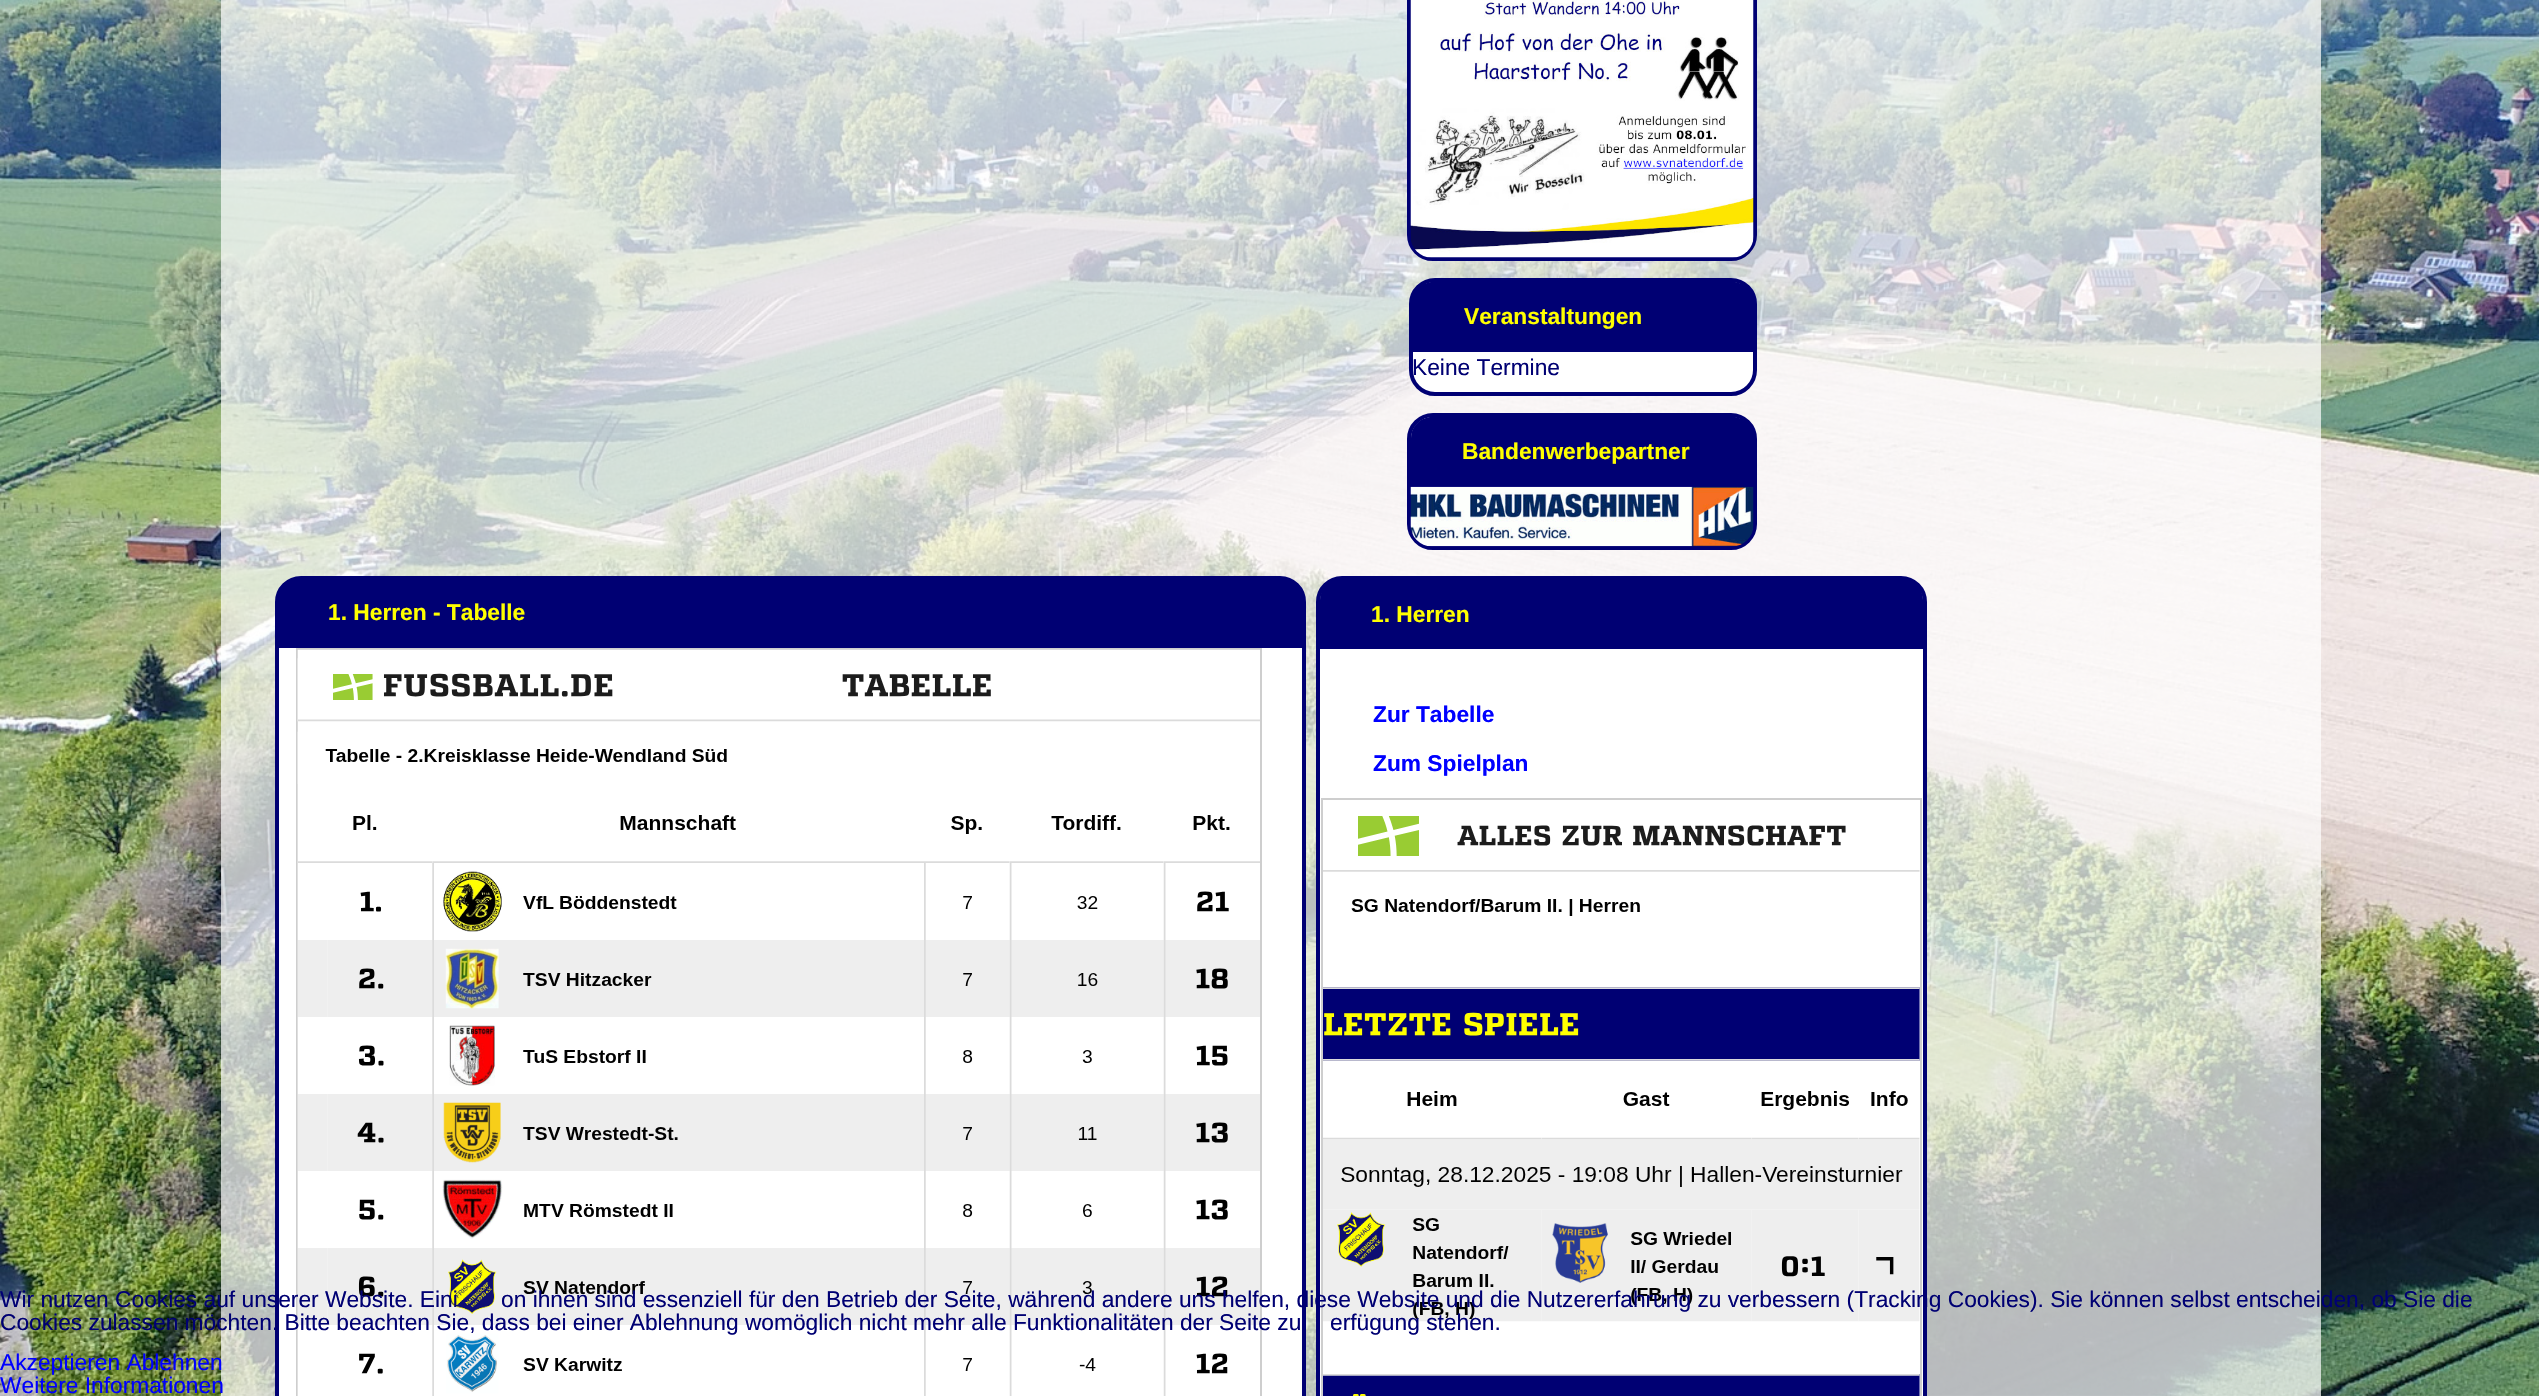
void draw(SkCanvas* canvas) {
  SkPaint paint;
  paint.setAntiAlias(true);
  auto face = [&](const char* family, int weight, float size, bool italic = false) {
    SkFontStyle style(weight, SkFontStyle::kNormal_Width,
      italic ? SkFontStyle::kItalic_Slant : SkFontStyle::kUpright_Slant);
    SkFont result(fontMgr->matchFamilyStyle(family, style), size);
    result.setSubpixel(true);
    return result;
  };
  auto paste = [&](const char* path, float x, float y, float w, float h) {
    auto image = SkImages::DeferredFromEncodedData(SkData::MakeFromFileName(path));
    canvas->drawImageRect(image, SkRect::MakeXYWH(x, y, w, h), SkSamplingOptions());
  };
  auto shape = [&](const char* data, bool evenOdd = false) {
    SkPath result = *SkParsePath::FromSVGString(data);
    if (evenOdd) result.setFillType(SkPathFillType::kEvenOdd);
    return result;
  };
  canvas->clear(0xffffffff);
  paste("img/1.png", 0, 0, 2539, 1396);
  paint.setColor(0xb3ffffff);
  canvas->drawRect(SkRect::MakeXYWH(221, 0, 2100, 1396), paint);
  paint.setStroke(true);
  paint.setStrokeWidth(4);
  paint.setColor(0xff000073);
  canvas->drawRoundRect(SkRect::MakeXYWH(1409, -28, 346, 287), 24, 24, paint);
  paste("img/2.png", 1410, 0, 344, 258);
  paint.setStroke(false);
  paint.setColor(0xffffffff);
  canvas->drawRoundRect(SkRect::MakeXYWH(1411, 280, 344, 114), 24, 24, paint);
  paint.setStroke(true);
  paint.setColor(0xff000073);
  canvas->drawRoundRect(SkRect::MakeXYWH(1411, 280, 344, 114), 24, 24, paint);
  paint.setStroke(false);
  canvas->drawPath(shape("M1433 282H1733C1744.5 282 1754 291.5 1754 303V352H1412V303C1412 291.5 1421.5 282 1433 282Z"), paint);
  paint.setStroke(true);
  canvas->drawRoundRect(SkRect::MakeXYWH(1409, 415, 346, 133), 24, 24, paint);
  paint.setStroke(false);
  canvas->drawPath(shape("M1432 417H1733C1744.5 417 1754 426.5 1754 438V487H1411V438C1411 426.5 1420.5 417 1432 417Z"), paint);
  paste("img/3.png", 1410, 486, 344, 61);
  paint.setColor(0xffffffff);
  canvas->drawRoundRect(SkRect::MakeXYWH(277, 578, 1027, 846), 24, 24, paint);
  paint.setStroke(true);
  paint.setColor(0xff000073);
  canvas->drawRoundRect(SkRect::MakeXYWH(277, 578, 1027, 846), 24, 24, paint);
  paint.setStroke(false);
  canvas->drawPath(shape("M298 578H1283C1294.5 578 1304 587.5 1304 599V648H277V599C277 587.5 286.5 578 298 578Z"), paint);
  paint.setStroke(true);
  paint.setStrokeWidth(2);
  paint.setColor(0xffcecece);
  canvas->drawRect(SkRect::MakeXYWH(297, 649, 964, 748), paint);
  paste("img/4.png", 297, 649, 963, 747);
  paint.setStroke(false);
  paint.setColor(0xffffffff);
  canvas->drawRoundRect(SkRect::MakeXYWH(1318, 578, 607, 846), 24, 24, paint);
  paint.setStroke(true);
  paint.setStrokeWidth(4);
  paint.setColor(0xff000073);
  canvas->drawRoundRect(SkRect::MakeXYWH(1318, 578, 607, 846), 24, 24, paint);
  paint.setStroke(false);
  canvas->drawPath(shape("M1341 579H1902C1913.5 579 1923 588.5 1923 600V649H1320V600C1320 588.5 1329.5 579 1341 579Z"), paint);
  paint.setStroke(true);
  paint.setStrokeWidth(2);
  paint.setColor(0xffcecece);
  canvas->drawRect(SkRect::MakeXYWH(1322, 799, 599, 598), paint);
  paste("img/5.png", 1323, 816, 597, 580);
  auto f0 = face("Liberation Sans", 700, 22.75f);
  paint.setStroke(false);
  paint.setColor(0xffffff00);
  canvas->drawString("Veranstaltungen", 1464, 324, f0, paint);
  auto f1 = face("Liberation Sans", 400, 22.75f);
  paint.setColor(0xff000073);
  canvas->drawString("Keine Termine", 1412, 375, f1, paint);
  paint.setColor(0xffffff00);
  {
    const struct { const char* s; float x, y; } items[] = {
      {"Bandenwerbepartner", 1462, 459},
      {"1. Herren - Tabelle", 328, 620},
      {"1. Herren", 1371, 622},
    };
    for (auto [s, x, y] : items) {
      canvas->drawString(s, x, y, f0, paint);
    }
  }
  paint.setColor(0xff0000ff);
  canvas->drawString("Zur Tabelle", 1373, 722, f0, paint);
  canvas->drawString("Zum Spielplan", 1373, 771, f0, paint);
  paint.setColor(0xff000073);
  {
    const struct { const char* s; float x, y; } items[] = {
      {"Wir nutzen Cookies auf unserer Website. Eini", 0, 1307},
      {"on ihnen sind essenziell für den Betrieb der Seite, während andere uns helfen, diese Website und die Nutzererfahrung zu verbessern (Tracking Cookies). Sie können selbst entscheiden, ob Sie die", 501, 1307},
      {"Cookies zulassen möchten. Bitte beachten Sie, dass bei einer Ablehnung womöglich nicht mehr alle Funktionalitäten der Seite zu", 0, 1330},
      {"erfügung stehen.", 1330, 1330},
    };
    for (auto [s, x, y] : items) {
      canvas->drawString(s, x, y, f1, paint);
    }
  }
  paint.setColor(0xff0000ff);
  canvas->drawString("Akzeptieren Ablehnen", 0, 1370, f1, paint);
  canvas->drawString("Weitere Informationen", 0, 1393, f1, paint);
}
